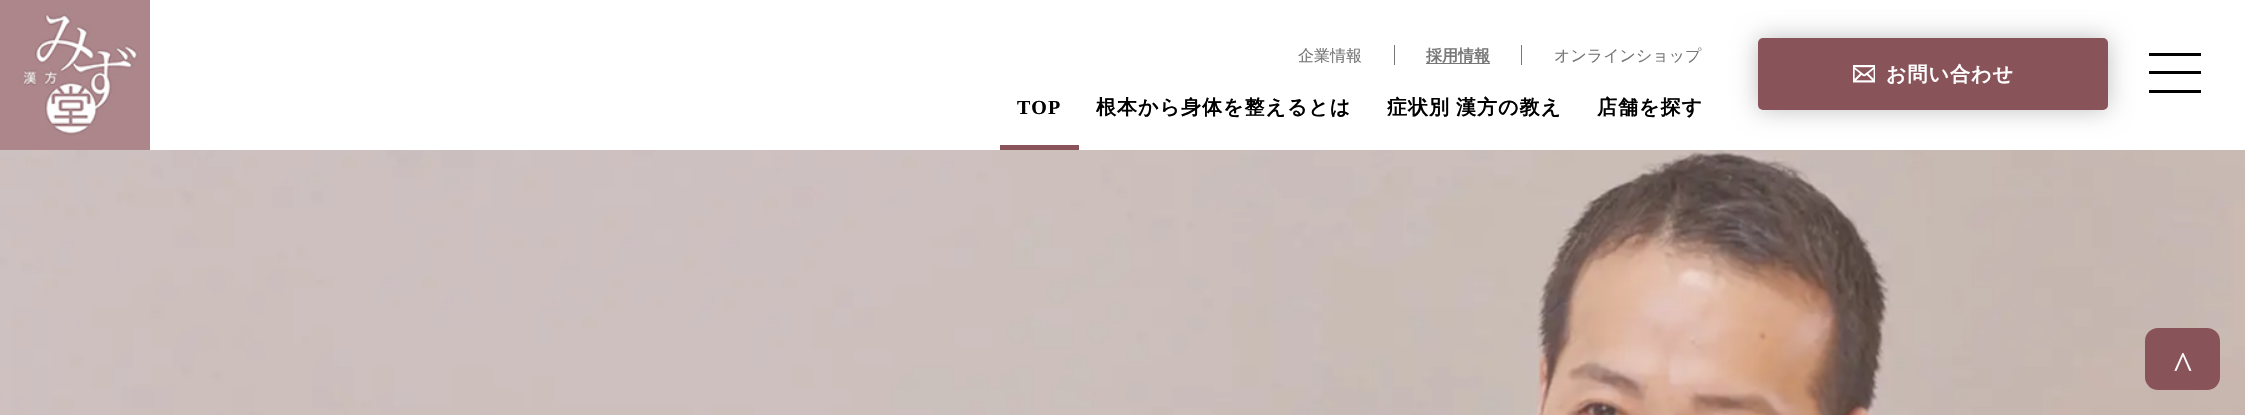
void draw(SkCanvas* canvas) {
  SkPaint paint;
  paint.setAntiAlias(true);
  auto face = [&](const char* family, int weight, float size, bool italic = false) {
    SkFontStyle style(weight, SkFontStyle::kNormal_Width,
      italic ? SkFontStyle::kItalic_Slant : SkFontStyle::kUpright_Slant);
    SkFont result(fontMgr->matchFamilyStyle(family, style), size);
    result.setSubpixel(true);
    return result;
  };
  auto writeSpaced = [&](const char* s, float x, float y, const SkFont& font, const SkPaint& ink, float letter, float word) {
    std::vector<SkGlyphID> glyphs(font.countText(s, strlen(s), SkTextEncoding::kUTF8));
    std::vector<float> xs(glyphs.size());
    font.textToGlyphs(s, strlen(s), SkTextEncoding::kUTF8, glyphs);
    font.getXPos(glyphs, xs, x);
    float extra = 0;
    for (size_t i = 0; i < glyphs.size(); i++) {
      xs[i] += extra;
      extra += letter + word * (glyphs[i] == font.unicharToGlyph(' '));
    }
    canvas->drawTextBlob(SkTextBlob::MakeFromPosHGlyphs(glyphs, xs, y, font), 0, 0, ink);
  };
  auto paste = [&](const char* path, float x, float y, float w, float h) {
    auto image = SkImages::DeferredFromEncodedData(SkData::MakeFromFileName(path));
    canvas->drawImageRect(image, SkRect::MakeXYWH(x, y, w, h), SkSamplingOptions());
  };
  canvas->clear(0xffffffff);
  paste("img/1.png", 0, 0, 150, 150);
  {
    const struct { float x, y, w, h; SkColor color; } items[] = {
      {1394, 45, 1, 20, 0xff777777},
      {1426, 63, 64, 1, 0xff777777},
      {1521, 45, 1, 20, 0xff777777},
    };
    for (auto [x, y, w, h, color] : items) {
      paint.setColor(color);
      canvas->drawRect(SkRect::MakeXYWH(x, y, w, h), paint);
    }
  }
  paint.setColor(0x40000000);
  paint.setMaskFilter(SkMaskFilter::MakeBlur(kNormal_SkBlurStyle, 12.5f));
  canvas->drawRoundRect(SkRect::MakeXYWH(1758, 38, 350, 72), 5, 5, paint);
  paint.setMaskFilter(nullptr);
  paint.setColor(0xff89535a);
  canvas->drawRoundRect(SkRect::MakeXYWH(1758, 38, 350, 72), 5, 5, paint);
  paste("img/2.png", 1853, 65, 22, 18);
  {
    const struct { float x, y, w, h; SkColor color; } items[] = {
      {2149, 53, 52, 3, 0xff000000},
      {2149, 71, 52, 3, 0xff000000},
      {2149, 90, 52, 3, 0xff000000},
      {1000, 145, 79, 5, 0xff89535a},
    };
    for (auto [x, y, w, h, color] : items) {
      paint.setColor(color);
      canvas->drawRect(SkRect::MakeXYWH(x, y, w, h), paint);
    }
  }
  paste("img/3.png", 0, 150, 2245, 265);
  canvas->drawRoundRect(SkRect::MakeXYWH(2145, 328, 75, 62), 13, 13, paint);
  auto f0 = face("WenQuanYi Zen Hei", 500, 16);
  paint.setColor(0xff777777);
  canvas->drawString("企業情報", 1298, 61, f0, paint);
  auto f1 = face("WenQuanYi Zen Hei", 700, 16);
  canvas->drawString("採用情報", 1426, 61, f1, paint);
  canvas->drawString("オンラインショップ", 1554, 61, f0, paint);
  auto f2 = face("WenQuanYi Zen Hei", 700, 20);
  paint.setColor(0xffffffff);
  writeSpaced("お問い合わせ", 1886, 81, f2, paint, 1, 0);
  auto f3 = face("Liberation Serif", 700, 20);
  paint.setColor(0xff000000);
  writeSpaced("TOP", 1017, 114, f3, paint, 1, 0);
  writeSpaced("根本から身体を整えるとは", 1096, 114, f2, paint, 1, 0);
  writeSpaced("症状別 漢方の教え", 1387, 114, f2, paint, 1, -1);
  writeSpaced("店舗を探す", 1597, 114, f2, paint, 1, 0);
  auto f4 = face("Liberation Serif", 400, 38);
  paint.setColor(0xffffffff);
  canvas->drawString("^", 2174, 378, f4, paint);
}
